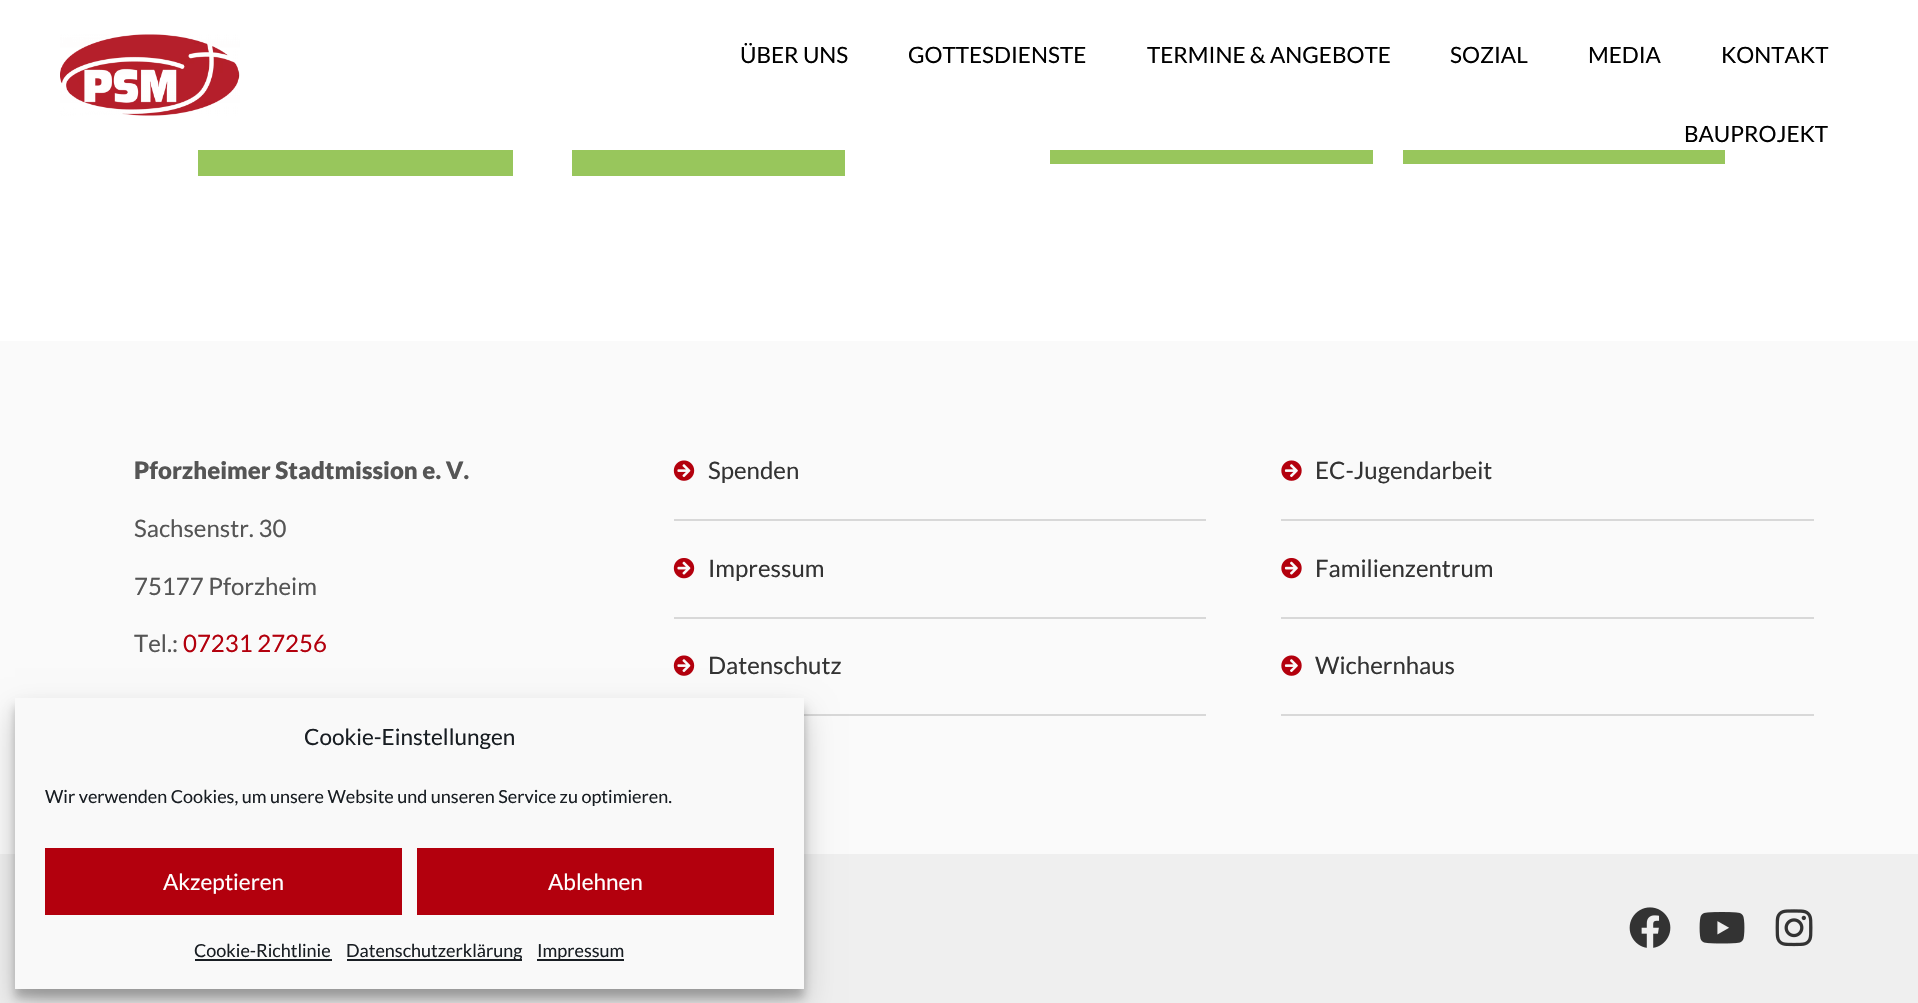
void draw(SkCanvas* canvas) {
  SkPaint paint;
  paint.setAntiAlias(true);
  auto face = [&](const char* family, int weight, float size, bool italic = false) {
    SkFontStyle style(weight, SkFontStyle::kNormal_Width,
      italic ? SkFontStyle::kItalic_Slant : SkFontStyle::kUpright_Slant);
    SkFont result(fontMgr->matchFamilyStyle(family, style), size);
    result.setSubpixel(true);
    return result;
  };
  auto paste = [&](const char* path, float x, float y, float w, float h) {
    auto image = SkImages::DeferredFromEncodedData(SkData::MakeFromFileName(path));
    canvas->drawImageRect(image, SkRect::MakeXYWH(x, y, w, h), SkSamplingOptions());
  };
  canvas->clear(0xffffffff);
  paste("img/1.png", 60, 34, 180, 82);
  {
    const struct { float x, y, w, h; SkColor color; } items[] = {
      {198, 150, 315, 26, 0xff98c65c},
      {572, 150, 273, 26, 0xff98c65c},
      {1050, 150, 323, 14, 0xff98c65c},
      {1403, 150, 322, 14, 0xff98c65c},
      {0, 341, 1918, 513, 0xfffafafa},
    };
    for (auto [x, y, w, h, color] : items) {
      paint.setColor(color);
      canvas->drawRect(SkRect::MakeXYWH(x, y, w, h), paint);
    }
  }
  paste("img/2.png", 673, 460, 22, 21);
  paint.setColor(0xffd8d8d8);
  canvas->drawRect(SkRect::MakeXYWH(674, 519, 532, 2), paint);
  paste("img/3.png", 673, 558, 22, 21);
  canvas->drawRect(SkRect::MakeXYWH(674, 617, 532, 2), paint);
  paste("img/2.png", 673, 655, 22, 21);
  canvas->drawRect(SkRect::MakeXYWH(804, 714, 402, 2), paint);
  paste("img/4.png", 1281, 460, 21, 21);
  canvas->drawRect(SkRect::MakeXYWH(1281, 519, 533, 2), paint);
  paste("img/5.png", 1281, 558, 21, 21);
  canvas->drawRect(SkRect::MakeXYWH(1281, 617, 533, 2), paint);
  paste("img/4.png", 1281, 655, 21, 21);
  canvas->drawRect(SkRect::MakeXYWH(1281, 714, 533, 2), paint);
  paint.setColor(0xffefefef);
  canvas->drawRect(SkRect::MakeXYWH(0, 854, 1918, 149), paint);
  paste("img/6.png", 1629, 907, 42, 41);
  paste("img/7.png", 1699, 912, 46, 32);
  paste("img/8.png", 1775, 909, 38, 38);
  paint.setColor(0x3b000000);
  paint.setMaskFilter(SkMaskFilter::MakeBlur(kNormal_SkBlurStyle, 4.5f));
  canvas->drawRect(SkRect::MakeXYWH(15, 707, 789, 291), paint);
  paint.setMaskFilter(nullptr);
  paint.setColor(0x30000000);
  paint.setMaskFilter(SkMaskFilter::MakeBlur(kNormal_SkBlurStyle, 15));
  canvas->drawRect(SkRect::MakeXYWH(15, 713, 789, 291), paint);
  paint.setMaskFilter(nullptr);
  {
    const struct { float x, y, w, h; SkColor color; } items[] = {
      {15, 698, 789, 291, 0xfff9f9f9},
      {45, 848, 357, 67, 0xffb3000d},
      {417, 848, 357, 67, 0xffb3000d},
      {195, 959, 137, 2, 0xff191e23},
      {347, 959, 175, 2, 0xff191e23},
      {537, 959, 87, 2, 0xff191e23},
    };
    for (auto [x, y, w, h, color] : items) {
      paint.setColor(color);
      canvas->drawRect(SkRect::MakeXYWH(x, y, w, h), paint);
    }
  }
  auto f0 = face("Lato", 400, 22.5f);
  paint.setColor(0xff000000);
  {
    const struct { const char* s; float x, y; } items[] = {
      {"ÜBER UNS", 740, 63},
      {"GOTTESDIENSTE", 908, 63},
      {"TERMINE & ANGEBOTE", 1147, 63},
      {"SOZIAL", 1450, 63},
      {"MEDIA", 1588, 63},
      {"KONTAKT", 1721, 63},
      {"BAUPROJEKT", 1684, 142},
    };
    for (auto [s, x, y] : items) {
      canvas->drawString(s, x, y, f0, paint);
    }
  }
  auto f1 = face("Lato", 900, 24);
  paint.setColor(0xff555555);
  canvas->drawString("Pforzheimer Stadtmission e. V.", 134, 479, f1, paint);
  auto f2 = face("Lato", 400, 24);
  {
    const struct { const char* s; float x, y; } items[] = {
      {"Sachsenstr. 30", 134, 537},
      {"75177 Pforzheim", 134, 595},
      {"Tel.:", 134, 652},
    };
    for (auto [s, x, y] : items) {
      canvas->drawString(s, x, y, f2, paint);
    }
  }
  paint.setColor(0xffb3000d);
  canvas->drawString("07231 27256", 183, 652, f2, paint);
  paint.setColor(0xff333333);
  {
    const struct { const char* s; float x, y; } items[] = {
      {"Spenden", 708, 479},
      {"Impressum", 708, 577},
      {"Datenschutz", 708, 674},
      {"EC-Jugendarbeit", 1315, 479},
      {"Familienzentrum", 1315, 577},
      {"Wichernhaus", 1315, 674},
    };
    for (auto [s, x, y] : items) {
      canvas->drawString(s, x, y, f2, paint);
    }
  }
  paint.setColor(0xff191e23);
  canvas->drawString("Cookie-Einstellungen", 304, 745, f0, paint);
  auto f3 = face("Lato", 400, 18);
  canvas->drawString("Wir verwenden Cookies, um unsere Website und unseren Service zu optimieren.", 45, 803, f3, paint);
  paint.setColor(0xffffffff);
  canvas->drawString("Akzeptieren", 163, 890, f0, paint);
  canvas->drawString("Ablehnen", 548, 890, f0, paint);
  paint.setColor(0xff191e23);
  {
    const struct { const char* s; float x, y; } items[] = {
      {"Cookie-Richtlinie", 194, 957},
      {"Datenschutzerklärung", 346, 957},
      {"Impressum", 537, 957},
    };
    for (auto [s, x, y] : items) {
      canvas->drawString(s, x, y, f3, paint);
    }
  }
}
